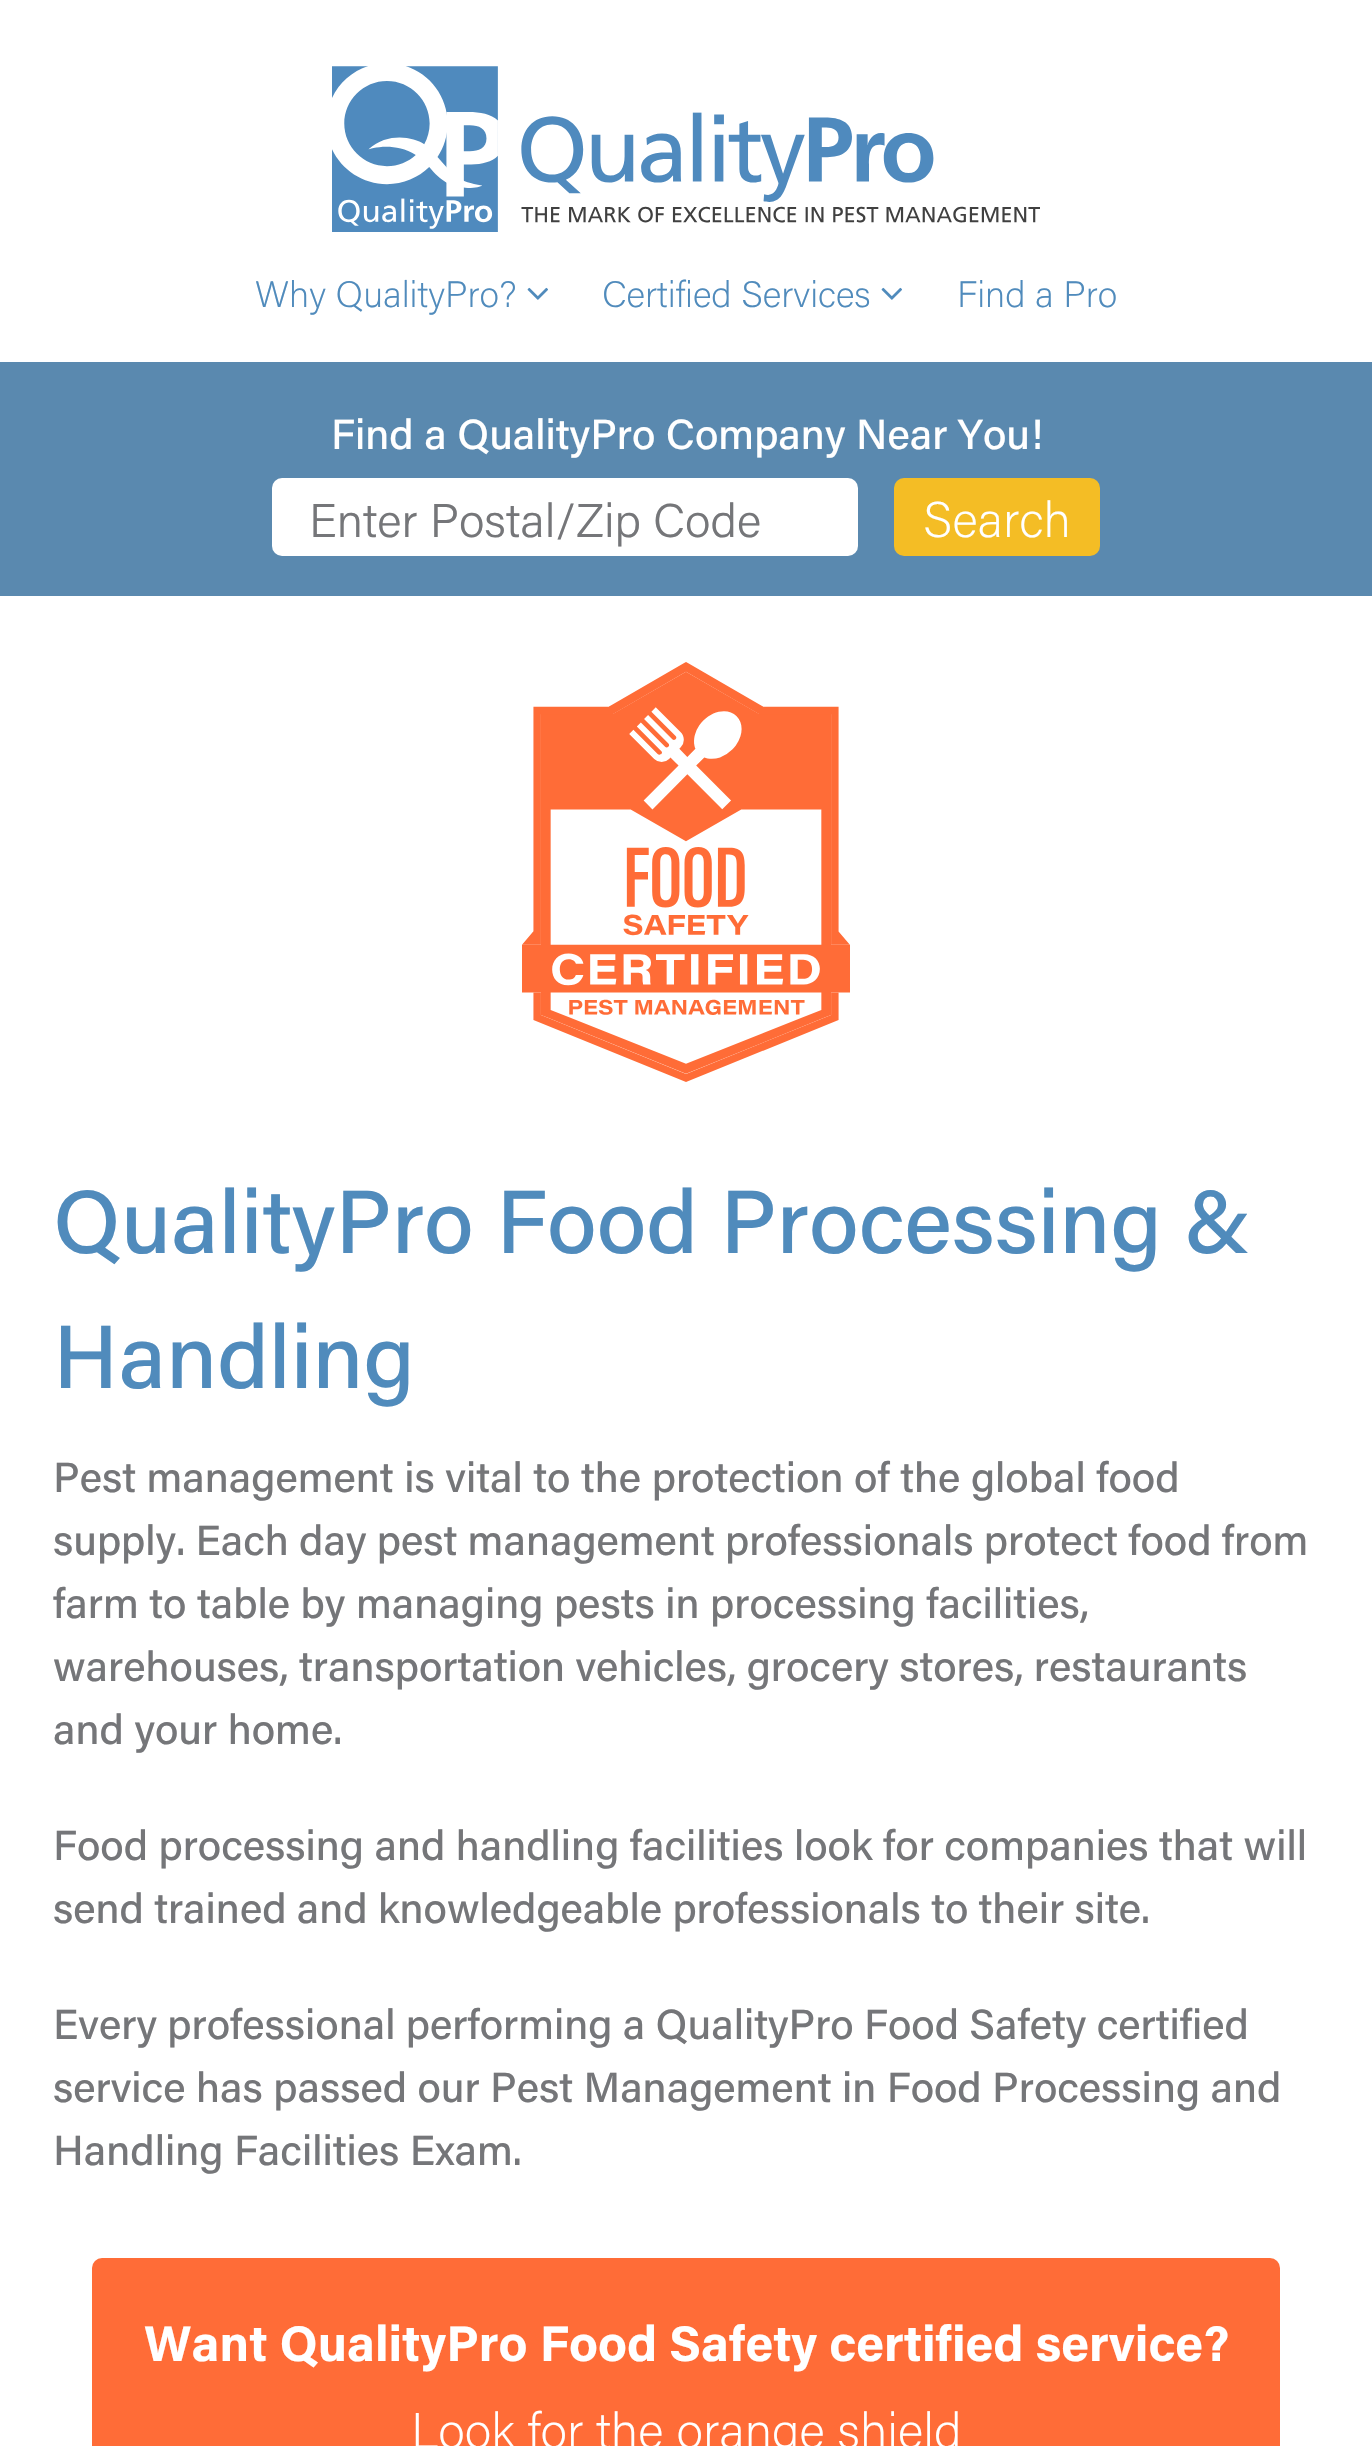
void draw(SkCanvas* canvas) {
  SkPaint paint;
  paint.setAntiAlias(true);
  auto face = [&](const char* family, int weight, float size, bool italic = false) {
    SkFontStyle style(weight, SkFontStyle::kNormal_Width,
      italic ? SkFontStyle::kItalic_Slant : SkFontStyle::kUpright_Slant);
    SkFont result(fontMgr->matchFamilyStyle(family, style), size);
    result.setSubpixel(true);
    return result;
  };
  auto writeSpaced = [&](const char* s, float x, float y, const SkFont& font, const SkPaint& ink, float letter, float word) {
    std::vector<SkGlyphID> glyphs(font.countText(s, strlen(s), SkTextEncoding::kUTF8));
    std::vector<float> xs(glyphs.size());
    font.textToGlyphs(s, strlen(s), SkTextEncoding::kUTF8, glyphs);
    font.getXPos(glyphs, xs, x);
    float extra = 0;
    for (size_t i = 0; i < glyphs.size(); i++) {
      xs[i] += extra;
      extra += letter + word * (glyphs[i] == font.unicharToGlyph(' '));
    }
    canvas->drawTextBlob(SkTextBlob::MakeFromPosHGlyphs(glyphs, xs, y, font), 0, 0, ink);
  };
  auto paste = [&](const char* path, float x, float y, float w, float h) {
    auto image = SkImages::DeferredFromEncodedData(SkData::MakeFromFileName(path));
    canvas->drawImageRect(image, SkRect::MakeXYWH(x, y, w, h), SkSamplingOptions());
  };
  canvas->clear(0xffffffff);
  paste("img/1.png", 332, 66, 708, 166);
  paste("img/2.png", 527, 287, 21, 13);
  paste("img/2.png", 881, 287, 21, 13);
  paint.setColor(0xff5a89af);
  canvas->drawRect(SkRect::MakeXYWH(0, 362, 1372, 234), paint);
  paint.setColor(0xffffffff);
  canvas->drawRoundRect(SkRect::MakeXYWH(272, 478, 586, 78), 10, 10, paint);
  paint.setColor(0xfff4bd25);
  canvas->drawRoundRect(SkRect::MakeXYWH(894, 478, 206, 78), 10, 10, paint);
  paste("img/3.png", 522, 662, 328, 420);
  paint.setColor(0xffff6c37);
  canvas->drawRoundRect(SkRect::MakeXYWH(92, 2258, 1188, 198), 10, 10, paint);
  auto f0 = face("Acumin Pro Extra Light", 200, 36.75f);
  paint.setColor(0xff508bbc);
  {
    const struct { const char* s; float x, y; } items[] = {
      {"Why QualityPro?", 255, 307},
      {"Certified Services", 602, 307},
      {"Find a Pro", 957, 307},
    };
    for (auto [s, x, y] : items) {
      canvas->drawString(s, x, y, f0, paint);
    }
  }
  auto f1 = face("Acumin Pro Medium", 500, 42.1f);
  paint.setColor(0xffffffff);
  canvas->drawString("Find a QualityPro Company Near You!", 331, 449, f1, paint);
  auto f2 = face("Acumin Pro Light", 300, 47.25f);
  paint.setColor(0xff757679);
  canvas->drawString("Enter Postal/Zip Code", 309, 537, f2, paint);
  auto f3 = face("Acumin Pro Extra Light", 200, 50);
  paint.setColor(0xffffffff);
  canvas->drawString("Search", 923, 537, f3, paint);
  auto f4 = face("Acumin Pro Medium", 500, 89.4f);
  paint.setColor(0xff508bbc);
  canvas->drawString("QualityPro Food Processing &", 53, 1253, f4, paint);
  canvas->drawString("Handling", 53, 1388, f4, paint);
  paint.setColor(0xff757679);
  canvas->drawString("Pest management is vital to the protection of the global food", 53, 1492, f1, paint);
  writeSpaced("supply. Each day pest management professionals protect food from", 53, 1555, f1, paint, 0, -0.25f);
  canvas->drawString("farm to table by managing pests in processing facilities,", 53, 1618, f1, paint);
  writeSpaced("warehouses, transportation vehicles, grocery stores, restaurants", 53, 1681, f1, paint, 0, -0.25f);
  canvas->drawString("and your home.", 53, 1744, f1, paint);
  writeSpaced("Food processing and handling facilities look for companies that will", 53, 1860, f1, paint, 0, -0.1f);
  writeSpaced("send trained and knowledgeable professionals to their site.", 53, 1923, f1, paint, 0, -0.25f);
  writeSpaced("Every professional performing a QualityPro Food Safety certified", 53, 2039, f1, paint, 0, -0.25f);
  writeSpaced("service has passed our Pest Management in Food Processing and", 53, 2102, f1, paint, 0, -0.1f);
  canvas->drawString("Handling Facilities Exam.", 53, 2165, f1, paint);
  auto f5 = face("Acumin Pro", 700, 50);
  paint.setColor(0xffffffff);
  canvas->drawString("Want QualityPro Food Safety certified service?", 144, 2361, f5, paint);
  canvas->drawString("Look for the orange shield", 411, 2448, f3, paint);
}
